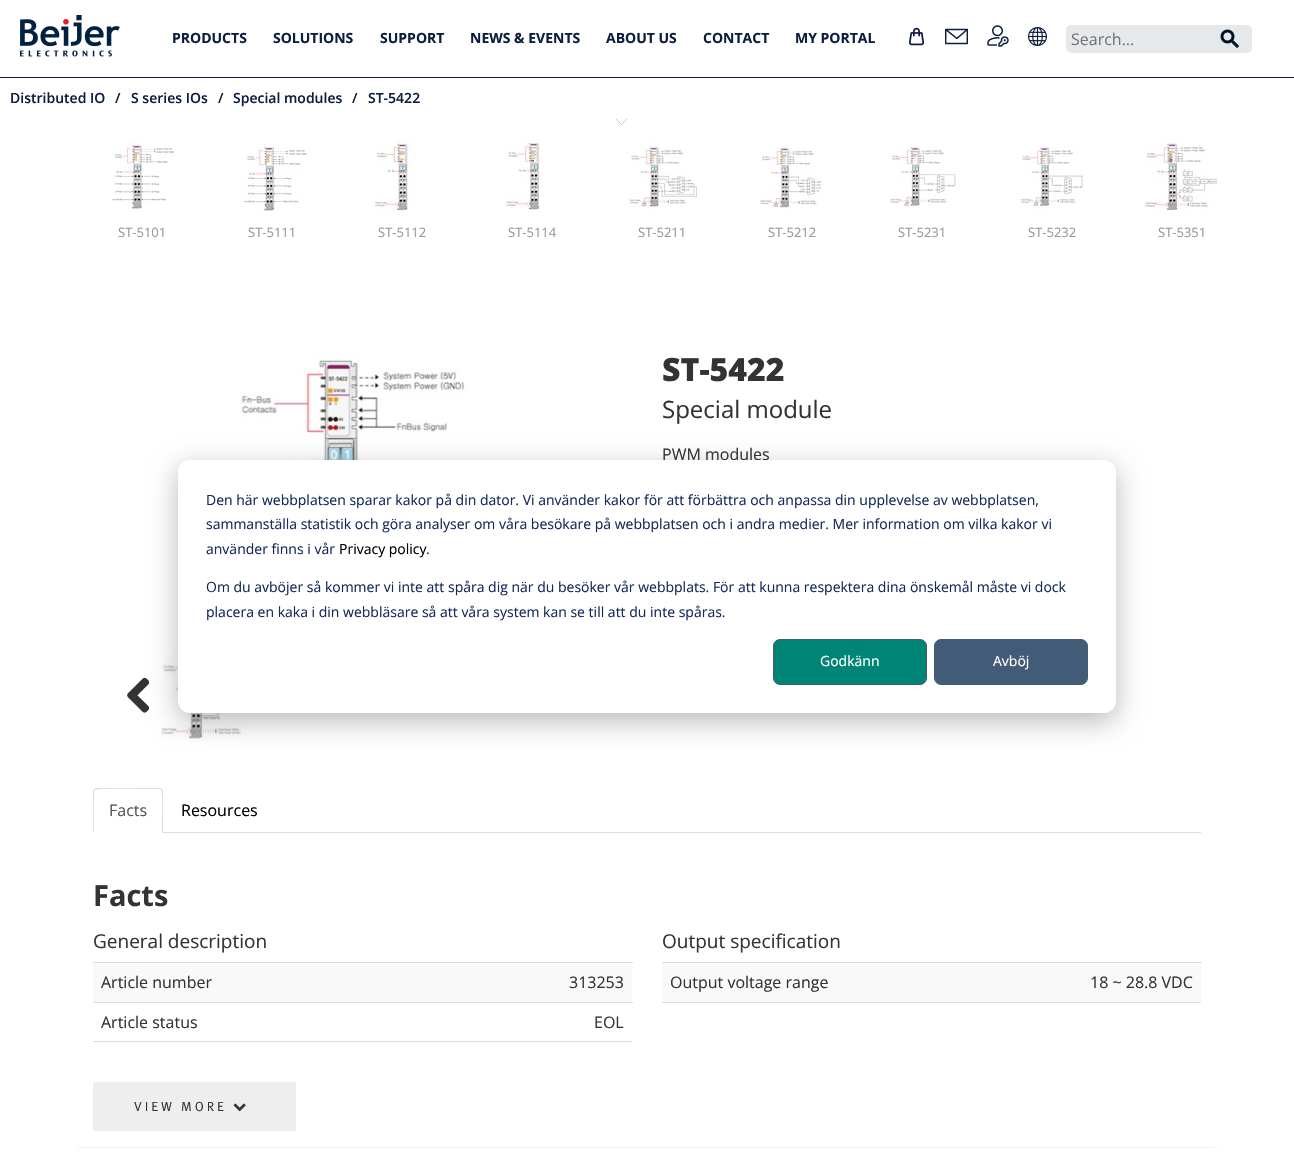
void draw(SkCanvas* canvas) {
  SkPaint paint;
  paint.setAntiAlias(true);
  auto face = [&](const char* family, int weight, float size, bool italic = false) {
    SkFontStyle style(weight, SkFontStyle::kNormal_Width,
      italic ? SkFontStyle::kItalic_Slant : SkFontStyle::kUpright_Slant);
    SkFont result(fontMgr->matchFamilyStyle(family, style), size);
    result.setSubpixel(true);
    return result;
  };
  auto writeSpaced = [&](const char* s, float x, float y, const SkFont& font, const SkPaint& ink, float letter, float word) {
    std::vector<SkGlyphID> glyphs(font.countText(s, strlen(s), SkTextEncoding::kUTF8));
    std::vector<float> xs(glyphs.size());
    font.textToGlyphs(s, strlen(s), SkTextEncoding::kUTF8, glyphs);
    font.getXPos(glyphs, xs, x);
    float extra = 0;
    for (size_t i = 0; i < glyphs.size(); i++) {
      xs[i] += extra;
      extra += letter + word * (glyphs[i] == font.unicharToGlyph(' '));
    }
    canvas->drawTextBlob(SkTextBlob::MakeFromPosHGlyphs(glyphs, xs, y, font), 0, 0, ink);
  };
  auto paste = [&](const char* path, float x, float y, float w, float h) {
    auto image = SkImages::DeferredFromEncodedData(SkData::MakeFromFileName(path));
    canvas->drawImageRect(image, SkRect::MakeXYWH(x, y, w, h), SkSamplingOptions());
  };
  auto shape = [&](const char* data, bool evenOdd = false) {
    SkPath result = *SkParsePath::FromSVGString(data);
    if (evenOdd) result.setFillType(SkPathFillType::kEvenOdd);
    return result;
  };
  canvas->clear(0xffffffff);
  paint.setColor(0xff0c1d40);
  canvas->drawRect(SkRect::MakeXYWH(0, 77, 1294, 1), paint);
  paste("img/1.png", 20, 15, 100, 42);
  paste("img/2.png", 908, 27, 17, 19);
  paste("img/3.png", 945, 28, 23, 17);
  paste("img/4.png", 987, 25, 22, 22);
  paste("img/5.png", 1028, 27, 19, 19);
  paint.setColor(0xffe6e9ec);
  canvas->drawRoundRect(SkRect::MakeXYWH(1066, 25, 186, 28), 5, 5, paint);
  paste("img/6.png", 1220, 29, 19, 19);
  paste("img/7.png", 616, 119, 11, 6);
  paste("img/8.png", 111, 139, 64, 71);
  paste("img/9.png", 243, 147, 65, 64);
  paste("img/10.png", 375, 139, 36, 72);
  paste("img/11.png", 506, 139, 35, 71);
  paste("img/12.png", 629, 139, 69, 71);
  paste("img/13.png", 760, 141, 63, 69);
  paste("img/14.png", 890, 147, 66, 63);
  paste("img/15.png", 1021, 147, 64, 64);
  paste("img/16.png", 1144, 139, 73, 72);
  paste("img/17.png", 234, 357, 242, 103);
  paste("img/18.png", 127, 677, 23, 36);
  paste("img/19.png", 161, 644, 80, 95);
  paint.setColor(0x0d000000);
  paint.setMaskFilter(SkMaskFilter::MakeBlur(kNormal_SkBlurStyle, 0.5f));
  canvas->drawRoundRect(SkRect::MakeXYWH(77, 778, 1140, 370), 4, 4, paint);
  paint.setMaskFilter(nullptr);
  paint.setColor(0xffffffff);
  canvas->drawRoundRect(SkRect::MakeXYWH(77, 777, 1140, 370), 4, 4, paint);
  paint.setColor(0xffdddddd);
  canvas->drawRect(SkRect::MakeXYWH(163, 832, 1038, 1), paint);
  canvas->drawPath(shape("M97 788L94 789L95 790C97 788 143 789 149 789H159L161 790L162 789L159 788Z"), paint);
  canvas->drawPath(shape("M163 833V792C163 791 162 790 162 789L161 790C163 792 162 827 162 832Z"), paint);
  canvas->drawPath(shape("M93 833L94 832C94 827 93 792 95 790L94 789L93 792Z"), paint);
  {
    const struct { float x, y, w, h; SkColor color; } items[] = {
      {93, 1041, 539, 1, 0xffdddddd},
      {93, 963, 539, 39, 0xfff9f9f9},
      {93, 962, 540, 1, 0xffdddddd},
      {93, 1002, 540, 1, 0xffdddddd},
      {662, 1002, 539, 1, 0xffdddddd},
      {662, 963, 539, 39, 0xfff9f9f9},
      {662, 962, 540, 1, 0xffdddddd},
      {93, 1082, 203, 49, 0xffeeeeee},
    };
    for (auto [x, y, w, h, color] : items) {
      paint.setColor(color);
      canvas->drawRect(SkRect::MakeXYWH(x, y, w, h), paint);
    }
  }
  paste("img/20.png", 233, 1103, 13, 9);
  paint.setColor(0x47000000);
  paint.setMaskFilter(SkMaskFilter::MakeBlur(kNormal_SkBlurStyle, 14));
  canvas->drawRoundRect(SkRect::MakeXYWH(178, 468, 938, 253), 12, 12, paint);
  paint.setMaskFilter(nullptr);
  auto f0 = face("Open Sans", 700, 14);
  paint.setColor(0xff0c1d40);
  {
    const struct { const char* s; float x, y; } items[] = {
      {"PRODUCTS", 172, 43},
      {"SOLUTIONS", 273, 43},
      {"SUPPORT", 380, 43},
      {"NEWS & EVENTS", 470, 43},
      {"ABOUT US", 606, 43},
      {"CONTACT", 703, 43},
      {"MY PORTAL", 795, 43},
    };
    for (auto [s, x, y] : items) {
      canvas->drawString(s, x, y, f0, paint);
    }
  }
  auto f1 = face("Open Sans", 400, 16);
  paint.setColor(0xff757575);
  canvas->drawString("Search...", 1071, 45, f1, paint);
  auto f2 = face("Open Sans", 600, 14);
  paint.setColor(0xff0c1d40);
  {
    const struct { const char* s; float x, y; } items[] = {
      {"Distributed IO", 10, 103},
      {"/", 115, 103},
      {"S series IOs", 131, 103},
      {"/", 218, 103},
      {"Special modules", 233, 103},
      {"/", 352, 103},
      {"ST-5422", 368, 103},
    };
    for (auto [s, x, y] : items) {
      canvas->drawString(s, x, y, f2, paint);
    }
  }
  auto f3 = face("Open Sans", 400, 13);
  paint.setColor(0xff999999);
  {
    const struct { const char* s; float x, y; } items[] = {
      {"ST-5101", 118, 237},
      {"ST-5111", 248, 237},
      {"ST-5112", 378, 237},
      {"ST-5114", 508, 237},
      {"ST-5211", 638, 237},
      {"ST-5212", 768, 237},
      {"ST-5231", 898, 237},
      {"ST-5232", 1028, 237},
      {"ST-5351", 1158, 237},
    };
    for (auto [s, x, y] : items) {
      canvas->drawString(s, x, y, f3, paint);
    }
  }
  auto f4 = face("Open Sans", 800, 32);
  paint.setColor(0xff333333);
  canvas->drawString("ST-5422", 662, 381, f4, paint);
  auto f5 = face("Open Sans", 400, 24);
  canvas->drawString("Special module", 662, 418, f5, paint);
  canvas->drawString("PWM modules", 662, 460, f1, paint);
  paint.setColor(0xff555555);
  canvas->drawString("Facts", 109, 816, f1, paint);
  paint.setColor(0xff000000);
  canvas->drawString("Resources", 181, 816, f1, paint);
  auto f6 = face("Open Sans", 700, 29);
  paint.setColor(0xff333333);
  canvas->drawString("Facts", 93, 906, f6, paint);
  auto f7 = face("Open Sans", 400, 19);
  canvas->drawString("General description", 93, 948, f7, paint);
  {
    const struct { const char* s; float x, y; } items[] = {
      {"Article number", 101, 988},
      {"313253", 569, 988},
      {"Article status", 101, 1028},
      {"EOL", 594, 1028},
    };
    for (auto [s, x, y] : items) {
      canvas->drawString(s, x, y, f1, paint);
    }
  }
  canvas->drawString("Output specification", 662, 948, f7, paint);
  canvas->drawString("Output voltage range", 670, 988, f1, paint);
  canvas->drawString("18 ~ 28.8 VDC", 1090, 988, f1, paint);
  auto f8 = face("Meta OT", 400, 13.25f);
  writeSpaced("VIEW MORE", 134, 1111, f8, paint, 3, 0);
  paint.setColor(0xffffffff);
  canvas->drawRoundRect(SkRect::MakeXYWH(178, 460, 938, 253), 12, 12, paint);
  auto f9 = face("Open Sans", 400, 14);
  paint.setColor(0xff15295a);
  {
    const struct { const char* s; float x, y; } items[] = {
      {"Den här webbplatsen sparar kakor på din dator. Vi använder kakor för att förbättra och anpassa din upplevelse av webbplatsen,", 206, 505},
      {"sammanställa statistik och göra analyser om våra besökare på webbplatsen och i andra medier. Mer information om vilka kakor vi", 206, 529},
      {"använder finns i vår", 206, 554},
    };
    for (auto [s, x, y] : items) {
      canvas->drawString(s, x, y, f9, paint);
    }
  }
  paint.setColor(0xff000000);
  canvas->drawString("Privacy policy", 339, 554, f9, paint);
  paint.setColor(0xff15295a);
  {
    const struct { const char* s; float x, y; } items[] = {
      {".", 426, 554},
      {"Om du avböjer så kommer vi inte att spåra dig när du besöker vår webbplats. För att kunna respektera dina önskemål måste vi dock", 206, 592},
      {"placera en kaka i din webbläsare så att våra system kan se till att du inte spåras.", 206, 617},
    };
    for (auto [s, x, y] : items) {
      canvas->drawString(s, x, y, f9, paint);
    }
  }
  paint.setColor(0xff008475);
  canvas->drawRoundRect(SkRect::MakeXYWH(773.5f, 639.5f, 153, 45), 6.5f, 6.5f, paint);
  paint.setStroke(true);
  paint.setStrokeWidth(1);
  paint.setColor(0xff425b76);
  canvas->drawRoundRect(SkRect::MakeXYWH(773.5f, 639.5f, 153, 45), 6.5f, 6.5f, paint);
  paint.setStroke(false);
  paint.setColor(0xffffffff);
  canvas->drawString("Godkänn", 820, 666, f9, paint);
  paint.setColor(0xff425b76);
  canvas->drawRoundRect(SkRect::MakeXYWH(934.5f, 639.5f, 153, 45), 6.5f, 6.5f, paint);
  paint.setStroke(true);
  canvas->drawRoundRect(SkRect::MakeXYWH(934.5f, 639.5f, 153, 45), 6.5f, 6.5f, paint);
  paint.setStroke(false);
  paint.setColor(0xffffffff);
  canvas->drawString("Avböj", 993, 666, f9, paint);
}
